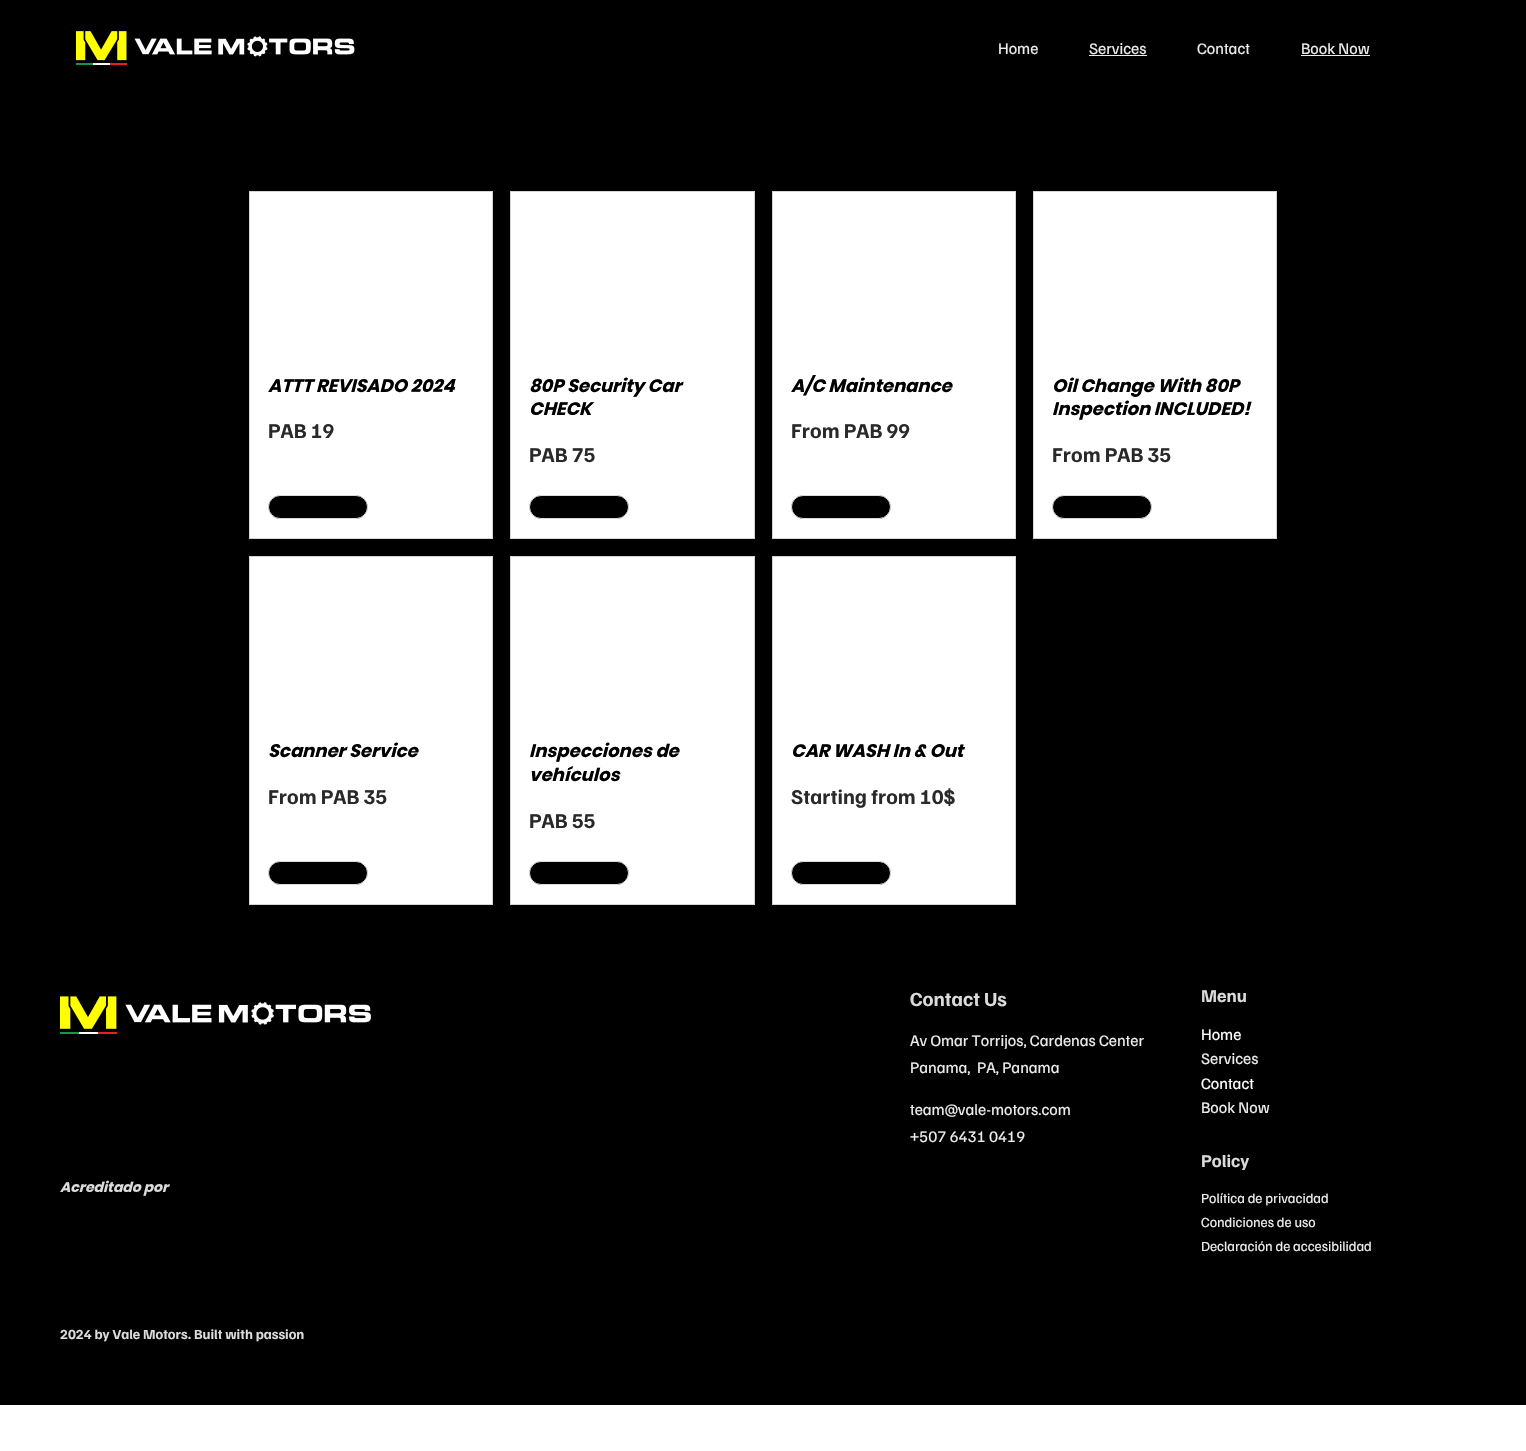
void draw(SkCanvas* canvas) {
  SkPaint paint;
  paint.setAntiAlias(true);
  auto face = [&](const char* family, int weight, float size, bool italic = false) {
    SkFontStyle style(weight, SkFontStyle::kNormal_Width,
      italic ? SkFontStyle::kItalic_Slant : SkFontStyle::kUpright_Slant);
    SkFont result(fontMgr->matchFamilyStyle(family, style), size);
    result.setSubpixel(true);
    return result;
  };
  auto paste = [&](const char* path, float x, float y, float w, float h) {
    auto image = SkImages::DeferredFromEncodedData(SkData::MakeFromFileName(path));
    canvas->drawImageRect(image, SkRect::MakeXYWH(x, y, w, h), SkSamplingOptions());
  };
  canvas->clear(0xffffffff);
  paint.setColor(0xff000000);
  canvas->drawRect(SkRect::MakeXYWH(0, 0, 1526, 1405), paint);
  paste("img/1.png", 76, 31, 279, 34);
  paint.setColor(0xffececec);
  canvas->drawRect(SkRect::MakeXYWH(1089, 55, 58, 1), paint);
  canvas->drawRect(SkRect::MakeXYWH(1301, 55, 69, 1), paint);
  paint.setColor(0xffffffff);
  canvas->drawRect(SkRect::MakeXYWH(249.5f, 191.5f, 243, 347), paint);
  paint.setStroke(true);
  paint.setStrokeWidth(1);
  paint.setColor(0xffd4d4d4);
  canvas->drawRect(SkRect::MakeXYWH(249.5f, 191.5f, 243, 347), paint);
  paint.setStroke(false);
  paint.setColor(0xff000000);
  canvas->drawRoundRect(SkRect::MakeXYWH(268.5f, 495.5f, 99, 23), 11.5f, 11.5f, paint);
  paint.setStroke(true);
  paint.setColor(0xffdbdbdb);
  canvas->drawRoundRect(SkRect::MakeXYWH(268.5f, 495.5f, 99, 23), 11.5f, 11.5f, paint);
  paint.setStroke(false);
  paint.setColor(0xffffffff);
  canvas->drawRect(SkRect::MakeXYWH(510.5f, 191.5f, 244, 347), paint);
  paint.setStroke(true);
  paint.setColor(0xffd4d4d4);
  canvas->drawRect(SkRect::MakeXYWH(510.5f, 191.5f, 244, 347), paint);
  paint.setStroke(false);
  paint.setColor(0xff000000);
  canvas->drawRoundRect(SkRect::MakeXYWH(529.5f, 495.5f, 99, 23), 11.5f, 11.5f, paint);
  paint.setStroke(true);
  paint.setColor(0xffdbdbdb);
  canvas->drawRoundRect(SkRect::MakeXYWH(529.5f, 495.5f, 99, 23), 11.5f, 11.5f, paint);
  paint.setStroke(false);
  paint.setColor(0xffffffff);
  canvas->drawRect(SkRect::MakeXYWH(772.5f, 191.5f, 243, 347), paint);
  paint.setStroke(true);
  paint.setColor(0xffd4d4d4);
  canvas->drawRect(SkRect::MakeXYWH(772.5f, 191.5f, 243, 347), paint);
  paint.setStroke(false);
  paint.setColor(0xff000000);
  canvas->drawRoundRect(SkRect::MakeXYWH(791.5f, 495.5f, 99, 23), 11.5f, 11.5f, paint);
  paint.setStroke(true);
  paint.setColor(0xffdbdbdb);
  canvas->drawRoundRect(SkRect::MakeXYWH(791.5f, 495.5f, 99, 23), 11.5f, 11.5f, paint);
  paint.setStroke(false);
  paint.setColor(0xffffffff);
  canvas->drawRect(SkRect::MakeXYWH(1033.5f, 191.5f, 243, 347), paint);
  paint.setStroke(true);
  paint.setColor(0xffd4d4d4);
  canvas->drawRect(SkRect::MakeXYWH(1033.5f, 191.5f, 243, 347), paint);
  paint.setStroke(false);
  paint.setColor(0xff000000);
  canvas->drawRoundRect(SkRect::MakeXYWH(1052.5f, 495.5f, 99, 23), 11.5f, 11.5f, paint);
  paint.setStroke(true);
  paint.setColor(0xffdbdbdb);
  canvas->drawRoundRect(SkRect::MakeXYWH(1052.5f, 495.5f, 99, 23), 11.5f, 11.5f, paint);
  paint.setStroke(false);
  paint.setColor(0xffffffff);
  canvas->drawRect(SkRect::MakeXYWH(249.5f, 556.5f, 243, 348), paint);
  paint.setStroke(true);
  paint.setColor(0xffd4d4d4);
  canvas->drawRect(SkRect::MakeXYWH(249.5f, 556.5f, 243, 348), paint);
  paint.setStroke(false);
  paint.setColor(0xff000000);
  canvas->drawRoundRect(SkRect::MakeXYWH(268.5f, 861.5f, 99, 23), 11.5f, 11.5f, paint);
  paint.setStroke(true);
  paint.setColor(0xffdbdbdb);
  canvas->drawRoundRect(SkRect::MakeXYWH(268.5f, 861.5f, 99, 23), 11.5f, 11.5f, paint);
  paint.setStroke(false);
  paint.setColor(0xffffffff);
  canvas->drawRect(SkRect::MakeXYWH(510.5f, 556.5f, 244, 348), paint);
  paint.setStroke(true);
  paint.setColor(0xffd4d4d4);
  canvas->drawRect(SkRect::MakeXYWH(510.5f, 556.5f, 244, 348), paint);
  paint.setStroke(false);
  paint.setColor(0xff000000);
  canvas->drawRoundRect(SkRect::MakeXYWH(529.5f, 861.5f, 99, 23), 11.5f, 11.5f, paint);
  paint.setStroke(true);
  paint.setColor(0xffdbdbdb);
  canvas->drawRoundRect(SkRect::MakeXYWH(529.5f, 861.5f, 99, 23), 11.5f, 11.5f, paint);
  paint.setStroke(false);
  paint.setColor(0xffffffff);
  canvas->drawRect(SkRect::MakeXYWH(772.5f, 556.5f, 243, 348), paint);
  paint.setStroke(true);
  paint.setColor(0xffd4d4d4);
  canvas->drawRect(SkRect::MakeXYWH(772.5f, 556.5f, 243, 348), paint);
  paint.setStroke(false);
  paint.setColor(0xff000000);
  canvas->drawRoundRect(SkRect::MakeXYWH(791.5f, 861.5f, 99, 23), 11.5f, 11.5f, paint);
  paint.setStroke(true);
  paint.setColor(0xffdbdbdb);
  canvas->drawRoundRect(SkRect::MakeXYWH(791.5f, 861.5f, 99, 23), 11.5f, 11.5f, paint);
  paste("img/2.png", 60, 996, 311, 38);
  auto f0 = face("Familjen Grotesk", 400, 16);
  paint.setStroke(false);
  paint.setColor(0xffececec);
  {
    const struct { const char* s; float x, y; } items[] = {
      {"Home", 998, 54},
      {"Services", 1089, 54},
      {"Contact", 1197, 54},
      {"Book Now", 1301, 54},
    };
    for (auto [s, x, y] : items) {
      canvas->drawString(s, x, y, f0, paint);
    }
  }
  auto f1 = face("Poppins", 700, 18, true);
  paint.setColor(0xff000000);
  canvas->drawString("ATTT REVISADO 2024", 268, 392, f1, paint);
  auto f2 = face("Familjen Grotesk", 700, 21);
  paint.setColor(0xff292929);
  canvas->drawString("PAB 19", 268, 438, f2, paint);
  paint.setColor(0xff000000);
  canvas->drawString("80P Security Car", 529, 392, f1, paint);
  canvas->drawString("CHECK", 529, 415, f1, paint);
  paint.setColor(0xff292929);
  canvas->drawString("PAB 75", 529, 462, f2, paint);
  paint.setColor(0xff000000);
  canvas->drawString("A/C Maintenance", 791, 392, f1, paint);
  paint.setColor(0xff292929);
  canvas->drawString("From PAB 99", 791, 438, f2, paint);
  paint.setColor(0xff000000);
  canvas->drawString("Oil Change With 80P", 1052, 392, f1, paint);
  canvas->drawString("Inspection INCLUDED!", 1052, 415, f1, paint);
  paint.setColor(0xff292929);
  canvas->drawString("From PAB 35", 1052, 462, f2, paint);
  paint.setColor(0xff000000);
  canvas->drawString("Scanner Service", 268, 757, f1, paint);
  paint.setColor(0xff292929);
  canvas->drawString("From PAB 35", 268, 804, f2, paint);
  paint.setColor(0xff000000);
  canvas->drawString("Inspecciones de", 529, 757, f1, paint);
  canvas->drawString("vehículos", 529, 781, f1, paint);
  paint.setColor(0xff292929);
  canvas->drawString("PAB 55", 529, 828, f2, paint);
  paint.setColor(0xff000000);
  canvas->drawString("CAR WASH In & Out", 791, 757, f1, paint);
  paint.setColor(0xff292929);
  canvas->drawString("Starting from 10$", 791, 804, f2, paint);
  auto f3 = face("Familjen Grotesk", 700, 20);
  paint.setColor(0xffdbdbdb);
  canvas->drawString("Contact Us", 910, 1006, f3, paint);
  paint.setColor(0xffececec);
  {
    const struct { const char* s; float x, y; } items[] = {
      {"Av Omar Torrijos, Cardenas Center", 910, 1046},
      {"Panama,  PA, Panama", 910, 1073},
      {"team@vale-motors.com", 910, 1115},
      {"+507 6431 0419", 910, 1142},
    };
    for (auto [s, x, y] : items) {
      canvas->drawString(s, x, y, f0, paint);
    }
  }
  auto f4 = face("Familjen Grotesk", 700, 18);
  paint.setColor(0xffdbdbdb);
  canvas->drawString("Menu", 1201, 1002, f4, paint);
  paint.setColor(0xffffffff);
  canvas->drawString("Home", 1201, 1040, f0, paint);
  paint.setColor(0xffececec);
  canvas->drawString("Services", 1201, 1064, f0, paint);
  paint.setColor(0xffffffff);
  canvas->drawString("Contact", 1201, 1089, f0, paint);
  paint.setColor(0xffececec);
  canvas->drawString("Book Now", 1201, 1113, f0, paint);
  paint.setColor(0xffdbdbdb);
  canvas->drawString("Policy", 1201, 1167, f4, paint);
  auto f5 = face("Familjen Grotesk", 400, 14);
  paint.setColor(0xffececec);
  {
    const struct { const char* s; float x, y; } items[] = {
      {"Política de privacidad", 1201, 1203},
      {"Condiciones de uso", 1201, 1227},
      {"Declaración de accesibilidad", 1201, 1251},
    };
    for (auto [s, x, y] : items) {
      canvas->drawString(s, x, y, f5, paint);
    }
  }
  auto f6 = face("Poppins", 700, 14, true);
  paint.setColor(0xffdbdbdb);
  canvas->drawString("Acreditado por", 60, 1192, f6, paint);
  auto f7 = face("Familjen Grotesk", 700, 14);
  canvas->drawString("2024 by Vale Motors. Built with passion", 60, 1339, f7, paint);
}
